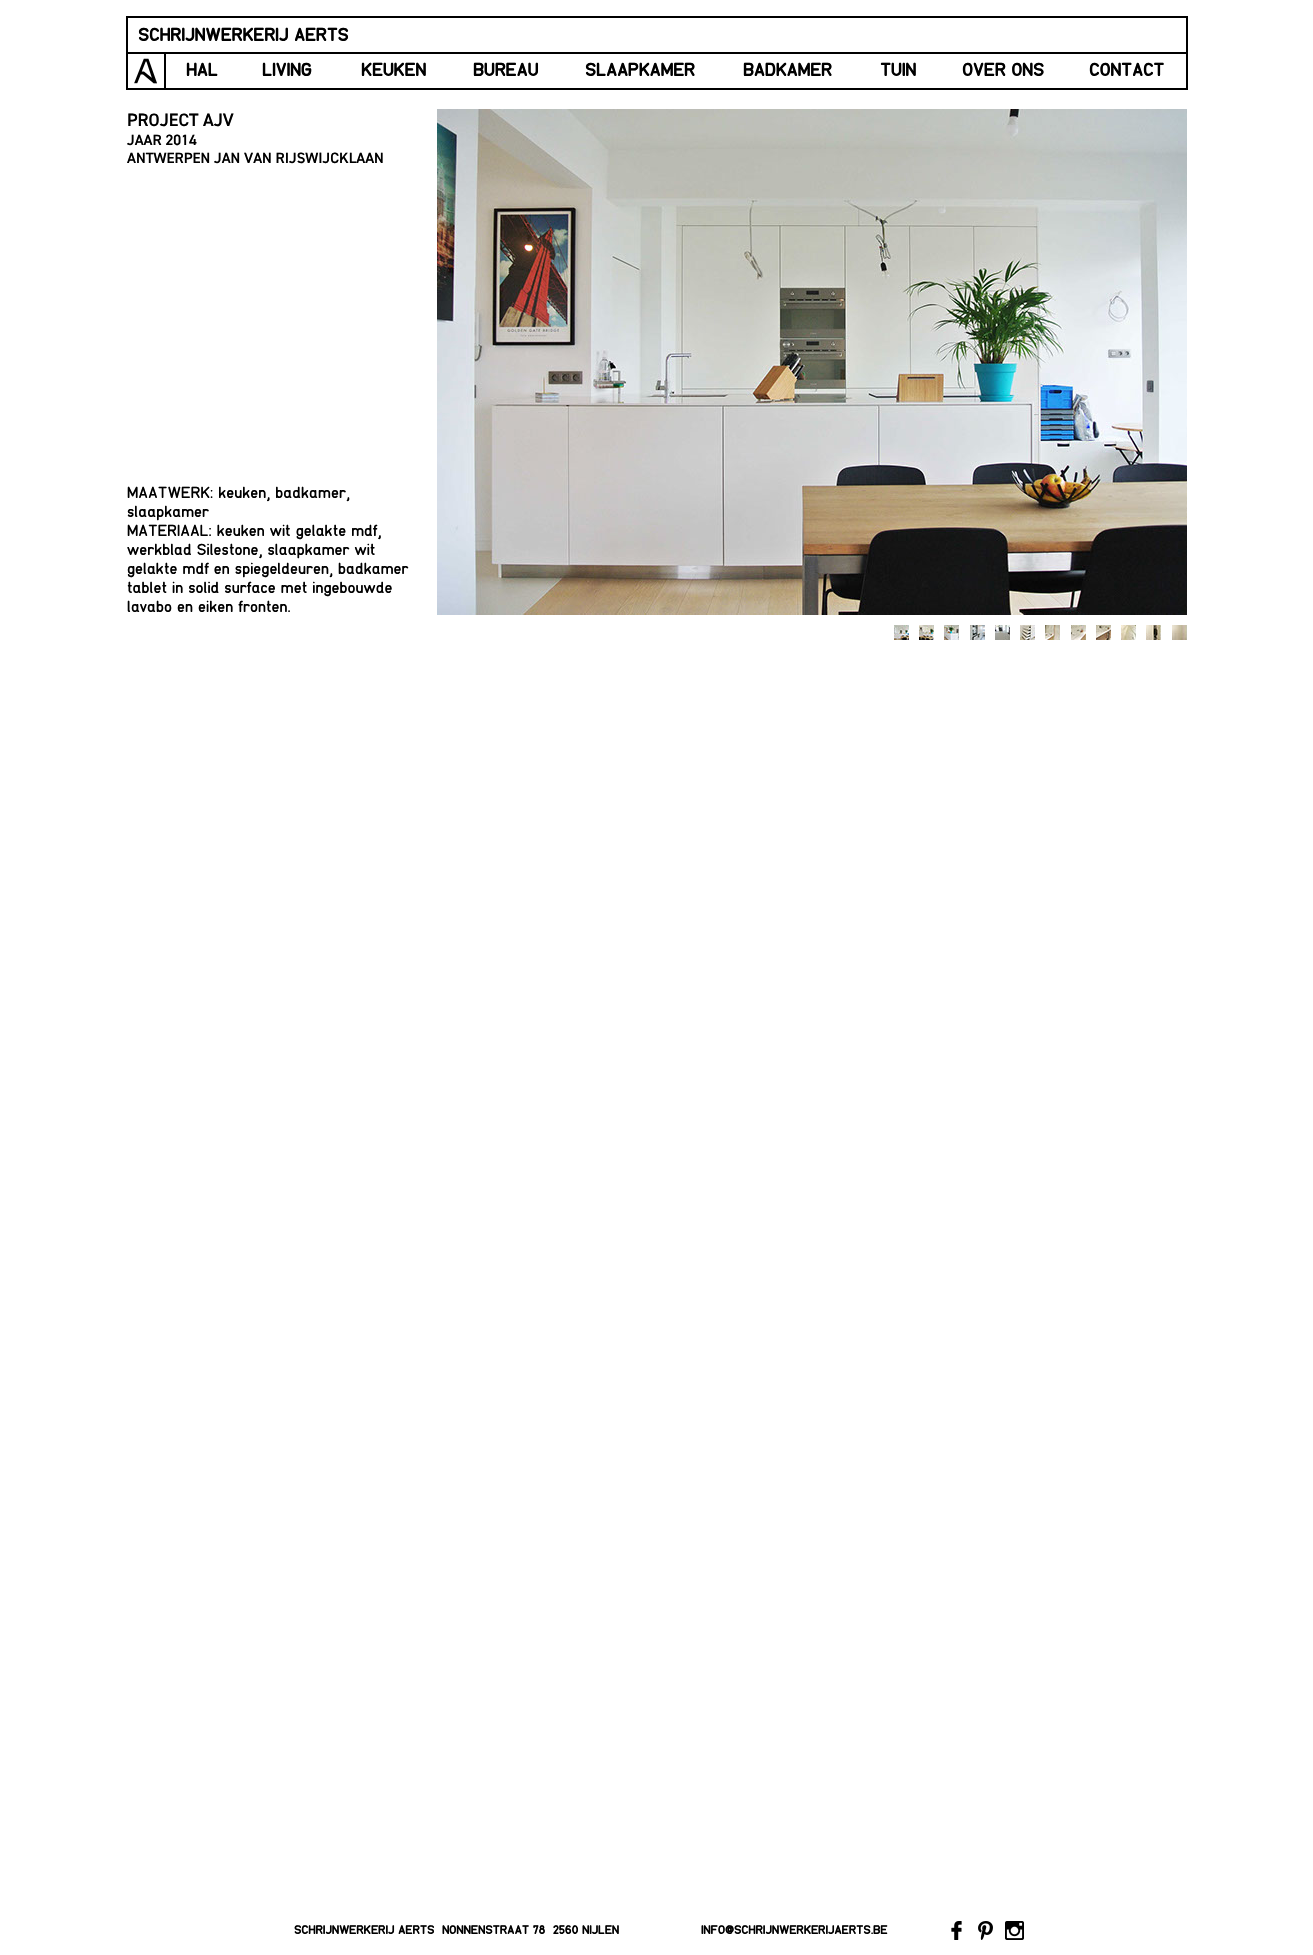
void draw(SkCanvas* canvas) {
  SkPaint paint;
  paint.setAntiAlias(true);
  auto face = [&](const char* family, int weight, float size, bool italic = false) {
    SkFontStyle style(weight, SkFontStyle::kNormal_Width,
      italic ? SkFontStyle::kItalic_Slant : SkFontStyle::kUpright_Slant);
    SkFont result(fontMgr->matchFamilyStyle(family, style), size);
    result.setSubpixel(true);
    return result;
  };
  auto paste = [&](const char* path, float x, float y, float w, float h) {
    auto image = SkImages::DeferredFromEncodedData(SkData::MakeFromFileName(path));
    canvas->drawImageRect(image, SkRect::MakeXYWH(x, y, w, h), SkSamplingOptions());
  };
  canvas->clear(0xffffffff);
  paint.setStroke(true);
  paint.setStrokeWidth(2);
  paint.setColor(0xff000000);
  canvas->drawRect(SkRect::MakeXYWH(127, 53, 1060, 36), paint);
  canvas->drawRect(SkRect::MakeXYWH(127, 53, 38, 36), paint);
  canvas->drawRect(SkRect::MakeXYWH(127, 17, 1060, 36), paint);
  paste("img/1.png", 134, 58, 23, 26);
  paste("img/2.png", 437, 109, 750, 506);
  paste("img/3.png", 894, 625, 15, 15);
  paste("img/4.png", 919, 625, 15, 15);
  paste("img/5.png", 944, 625, 15, 15);
  paste("img/6.png", 970, 625, 15, 15);
  paste("img/7.png", 995, 625, 15, 15);
  paste("img/8.png", 1020, 625, 15, 15);
  paste("img/9.png", 1045, 625, 15, 15);
  paste("img/10.png", 1071, 625, 15, 15);
  paste("img/11.png", 1096, 625, 15, 15);
  paste("img/12.png", 1121, 625, 15, 15);
  paste("img/13.png", 1146, 625, 15, 15);
  paste("img/14.png", 1172, 625, 15, 15);
  paste("img/15.png", 951, 1921, 11, 19);
  paste("img/16.png", 978, 1921, 15, 19);
  paste("img/17.png", 1005, 1921, 19, 19);
  auto f0 = face("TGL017", 700, 18);
  paint.setStroke(false);
  {
    const struct { const char* s; float x, y; } items[] = {
      {"SCHRIJNWERKERIJ AERTS", 138, 41},
      {"HAL", 186, 76},
      {"LIVING", 262, 76},
      {"KEUKEN", 361, 76},
      {"BUREAU", 473, 76},
      {"SLAAPKAMER", 585, 76},
      {"BADKAMER", 743, 76},
      {"TUIN", 880, 76},
      {"OVER ONS", 962, 76},
      {"CONTACT", 1089, 76},
    };
    for (auto [s, x, y] : items) {
      canvas->drawString(s, x, y, f0, paint);
    }
  }
  auto f1 = face("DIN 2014", 600, 18);
  canvas->drawString("PROJECT AJV", 127, 126, f1, paint);
  auto f2 = face("DIN 2014", 600, 15);
  canvas->drawString("JAAR 2014", 127, 145, f2, paint);
  canvas->drawString("ANTWERPEN JAN VAN RIJSWIJCKLAAN", 127, 163, f2, paint);
  auto f3 = face("TGL017", 400, 16);
  {
    const struct { const char* s; float x, y; } items[] = {
      {"MAATWERK: keuken, badkamer,", 127, 498},
      {"slaapkamer", 127, 517},
      {"MATERIAAL: keuken wit gelakte mdf,", 127, 536},
      {"werkblad Silestone, slaapkamer wit", 127, 555},
      {"gelakte mdf en spiegeldeuren, badkamer", 127, 574},
      {"tablet in solid surface met ingebouwde", 127, 593},
      {"lavabo en eiken fronten.", 127, 612},
    };
    for (auto [s, x, y] : items) {
      canvas->drawString(s, x, y, f3, paint);
    }
  }
  auto f4 = face("TGL017", 700, 12);
  canvas->drawString("SCHRIJNWERKERIJ AERTS  NONNENSTRAAT 78  2560 NIJLEN", 294, 1934, f4, paint);
  canvas->drawString("INFO@SCHRIJNWERKERIJAERTS.BE", 701, 1934, f4, paint);
}
